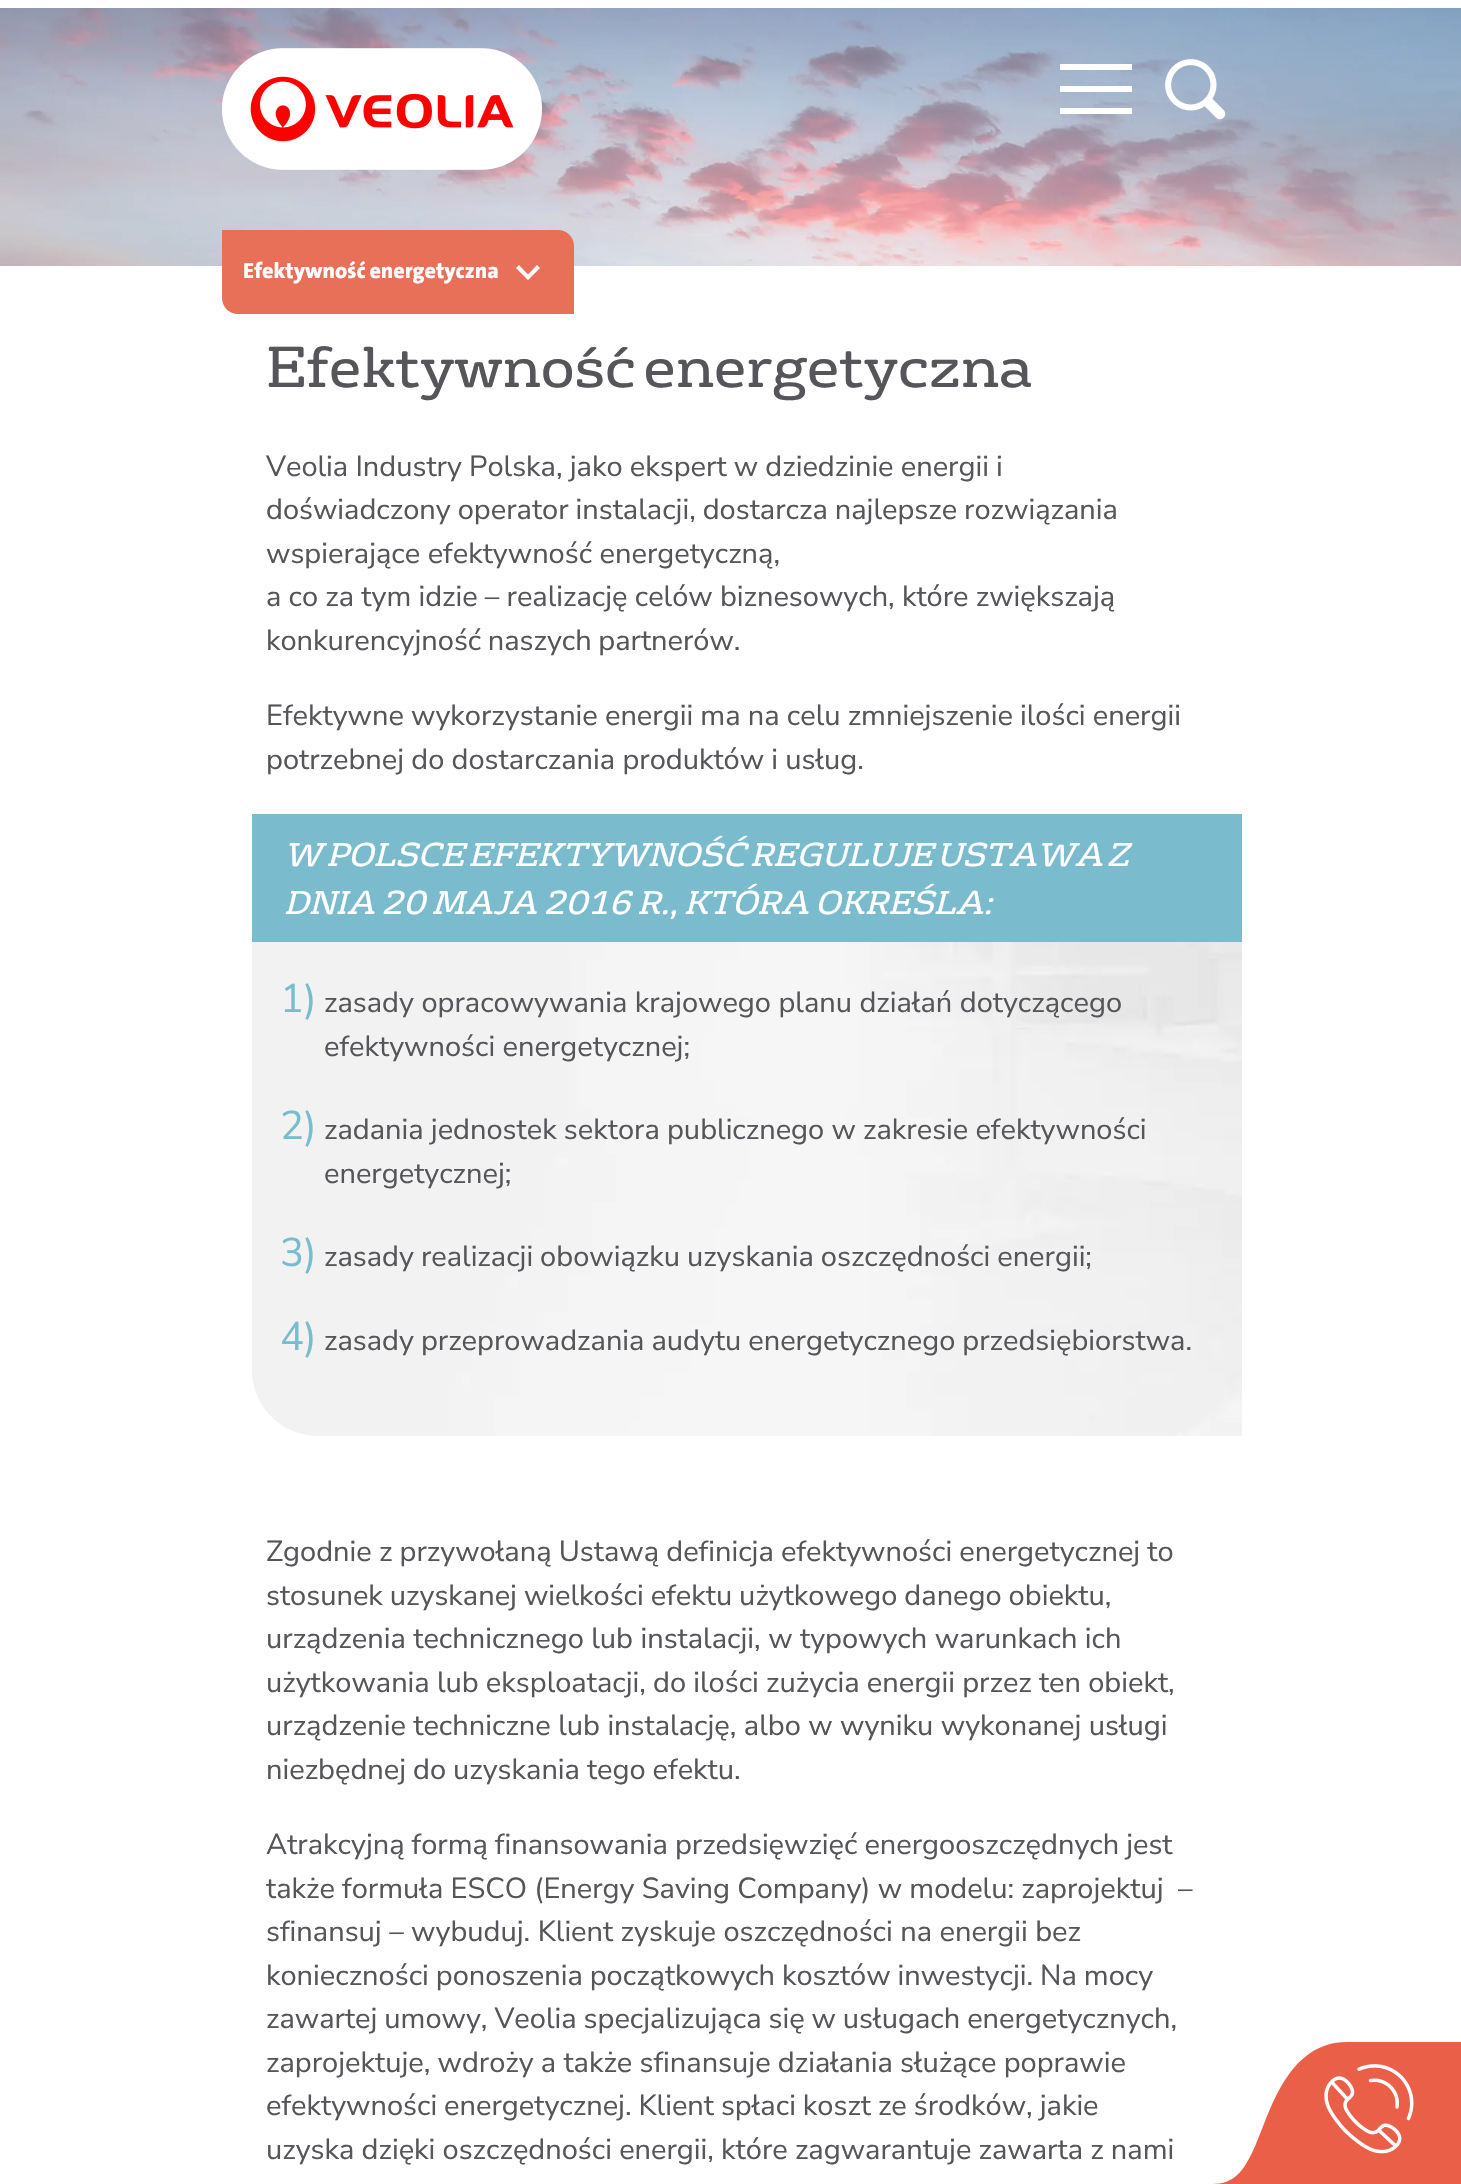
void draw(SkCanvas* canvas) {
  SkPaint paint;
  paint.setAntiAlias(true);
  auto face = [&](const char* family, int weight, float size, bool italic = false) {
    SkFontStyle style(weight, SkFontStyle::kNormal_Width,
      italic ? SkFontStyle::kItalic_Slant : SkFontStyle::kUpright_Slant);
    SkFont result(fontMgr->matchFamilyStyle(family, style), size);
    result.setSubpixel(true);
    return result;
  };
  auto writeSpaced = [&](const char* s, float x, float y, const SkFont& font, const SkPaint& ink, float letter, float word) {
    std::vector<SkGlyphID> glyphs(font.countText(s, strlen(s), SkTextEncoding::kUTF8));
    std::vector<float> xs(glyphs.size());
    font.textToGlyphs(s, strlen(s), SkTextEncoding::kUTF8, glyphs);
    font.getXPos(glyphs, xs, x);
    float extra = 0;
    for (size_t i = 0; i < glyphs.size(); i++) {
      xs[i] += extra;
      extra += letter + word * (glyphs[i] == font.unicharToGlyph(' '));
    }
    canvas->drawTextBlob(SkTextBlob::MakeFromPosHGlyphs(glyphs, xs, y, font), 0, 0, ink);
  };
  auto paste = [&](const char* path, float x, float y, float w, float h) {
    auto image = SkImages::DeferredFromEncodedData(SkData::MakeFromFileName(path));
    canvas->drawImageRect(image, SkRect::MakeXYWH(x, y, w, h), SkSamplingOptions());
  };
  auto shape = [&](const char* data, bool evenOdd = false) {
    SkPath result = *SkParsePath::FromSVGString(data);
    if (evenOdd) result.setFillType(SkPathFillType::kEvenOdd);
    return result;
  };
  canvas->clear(0xffffffff);
  paste("img/3.png", 0, 8, 1461, 258);
  paste("img/1.png", 222, 48, 320, 122);
  {
    const struct { float x, y, w, h; SkColor color; } items[] = {
      {1060, 64, 72, 6, 0xffffffff},
      {1060, 86, 72, 6, 0xffffffff},
      {1060, 108, 72, 6, 0xffffffff},
    };
    for (auto [x, y, w, h, color] : items) {
      paint.setColor(color);
      canvas->drawRect(SkRect::MakeXYWH(x, y, w, h), paint);
    }
  }
  paste("img/2.png", 1165, 59, 61, 61);
  paint.setColor(0xffe97058);
  canvas->drawPath(shape("M222 230H558C567 230 574 237 574 246V314H238C229 314 222 307 222 298Z"), paint);
  paint.setColor(0xffffffff);
  canvas->drawPath(shape("M537 265L528 274.5L519 265L516 268L528 280L540 268Z"), paint);
  paste("img/4.png", 252, 942, 990, 494);
  paint.setColor(0xff7abcce);
  canvas->drawRect(SkRect::MakeXYWH(252, 814, 990, 128), paint);
  paint.setColor(0xffe95f47);
  canvas->drawPath(shape("M1212 2184C1234 2184 1244 2172 1256 2144C1269 2116 1286 2042 1347 2042H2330V2184"), paint);
  paste("img/5.png", 1324, 2064, 90, 90);
  auto f0 = face("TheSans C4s", 800, 22);
  paint.setColor(0xffffffff);
  writeSpaced("Efektywność energetyczna", 243, 278, f0, paint, 0, -1);
  auto f1 = face("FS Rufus", 400, 56);
  paint.setColor(0xff55555a);
  writeSpaced("Efektywność energetyczna", 266, 387, f1, paint, 0, -3);
  auto f2 = face("Nunito Sans", 400, 29);
  writeSpaced("Veolia Industry Polska, jako ekspert w dziedzinie energii i", 266, 476, f2, paint, 0, -0.25f);
  writeSpaced("doświadczony operator instalacji, dostarcza najlepsze rozwiązania", 266, 519, f2, paint, 0, -0.5f);
  canvas->drawString("wspierające efektywność energetyczną,", 266, 563, f2, paint);
  writeSpaced("a co za tym idzie – realizację celów biznesowych, które zwiększają", 266, 606, f2, paint, 0, -0.25f);
  writeSpaced("konkurencyjność naszych partnerów.", 266, 650, f2, paint, 0, -1);
  writeSpaced("Efektywne wykorzystanie energii ma na celu zmniejszenie ilości energii", 266, 725, f2, paint, 0, -0.25f);
  writeSpaced("potrzebnej do dostarczania produktów i usług.", 266, 769, f2, paint, 0, -0.25f);
  auto f3 = face("FS Rufus", 400, 32, true);
  paint.setColor(0xffffffff);
  writeSpaced("W POLSCE EFEKTYWNOŚĆ REGULUJE USTAWA Z", 284, 866, f3, paint, 0, -1.75f);
  writeSpaced("DNIA 20 MAJA 2016 R., KTÓRA OKREŚLA:", 284, 914, f3, paint, 0, 0.25f);
  auto f4 = face("Nunito Sans", 400, 40);
  paint.setColor(0xff7abcce);
  canvas->drawString("1)", 280, 1012, f4, paint);
  paint.setColor(0xff55555a);
  canvas->drawString("zasady opracowywania krajowego planu działań dotyczącego", 324, 1012, f2, paint);
  canvas->drawString("efektywności energetycznej;", 324, 1056, f2, paint);
  paint.setColor(0xff7abcce);
  canvas->drawString("2)", 280, 1139, f4, paint);
  paint.setColor(0xff55555a);
  writeSpaced("zadania jednostek sektora publicznego w zakresie efektywności", 324, 1139, f2, paint, 0, -0.25f);
  canvas->drawString("energetycznej;", 324, 1183, f2, paint);
  paint.setColor(0xff7abcce);
  canvas->drawString("3)", 280, 1266, f4, paint);
  paint.setColor(0xff55555a);
  writeSpaced("zasady realizacji obowiązku uzyskania oszczędności energii;", 324, 1266, f2, paint, 0, -0.5f);
  paint.setColor(0xff7abcce);
  canvas->drawString("4)", 280, 1350, f4, paint);
  paint.setColor(0xff55555a);
  writeSpaced("zasady przeprowadzania audytu energetycznego przedsiębiorstwa.", 324, 1350, f2, paint, 0, -0.5f);
  writeSpaced("Zgodnie z przywołaną Ustawą definicja efektywności energetycznej to", 266, 1561, f2, paint, 0, -0.25f);
  writeSpaced("stosunek uzyskanej wielkości efektu użytkowego danego obiektu,", 266, 1605, f2, paint, 0, -0.5f);
  canvas->drawString("urządzenia technicznego lub instalacji, w typowych warunkach ich", 266, 1648, f2, paint);
  writeSpaced("użytkowania lub eksploatacji, do ilości zużycia energii przez ten obiekt,", 266, 1692, f2, paint, 0, -0.25f);
  canvas->drawString("urządzenie techniczne lub instalację, albo w wyniku wykonanej usługi", 266, 1735, f2, paint);
  writeSpaced("niezbędnej do uzyskania tego efektu.", 266, 1779, f2, paint, 0, -0.5f);
  writeSpaced("Atrakcyjną formą finansowania przedsięwzięć energooszczędnych jest", 266, 1854, f2, paint, 0, -0.5f);
  writeSpaced("także formuła ESCO (Energy Saving Company) w modelu: zaprojektuj  –", 266, 1898, f2, paint, 0, -0.25f);
  canvas->drawString("sfinansuj – wybuduj. Klient zyskuje oszczędności na energii bez", 266, 1941, f2, paint);
  writeSpaced("konieczności ponoszenia początkowych kosztów inwestycji. Na mocy", 266, 1985, f2, paint, 0, -0.5f);
  writeSpaced("zawartej umowy, Veolia specjalizująca się w usługach energetycznych,", 266, 2028, f2, paint, 0, -0.5f);
  writeSpaced("zaprojektuje, wdroży a także sfinansuje działania służące poprawie", 266, 2072, f2, paint, 0, -0.25f);
  writeSpaced("efektywności energetycznej. Klient spłaci koszt ze środków, jakie", 266, 2115, f2, paint, 0, -0.5f);
  writeSpaced("uzyska dzięki oszczędności energii, które zagwarantuje zawarta z nami", 266, 2159, f2, paint, 0, -0.25f);
}
